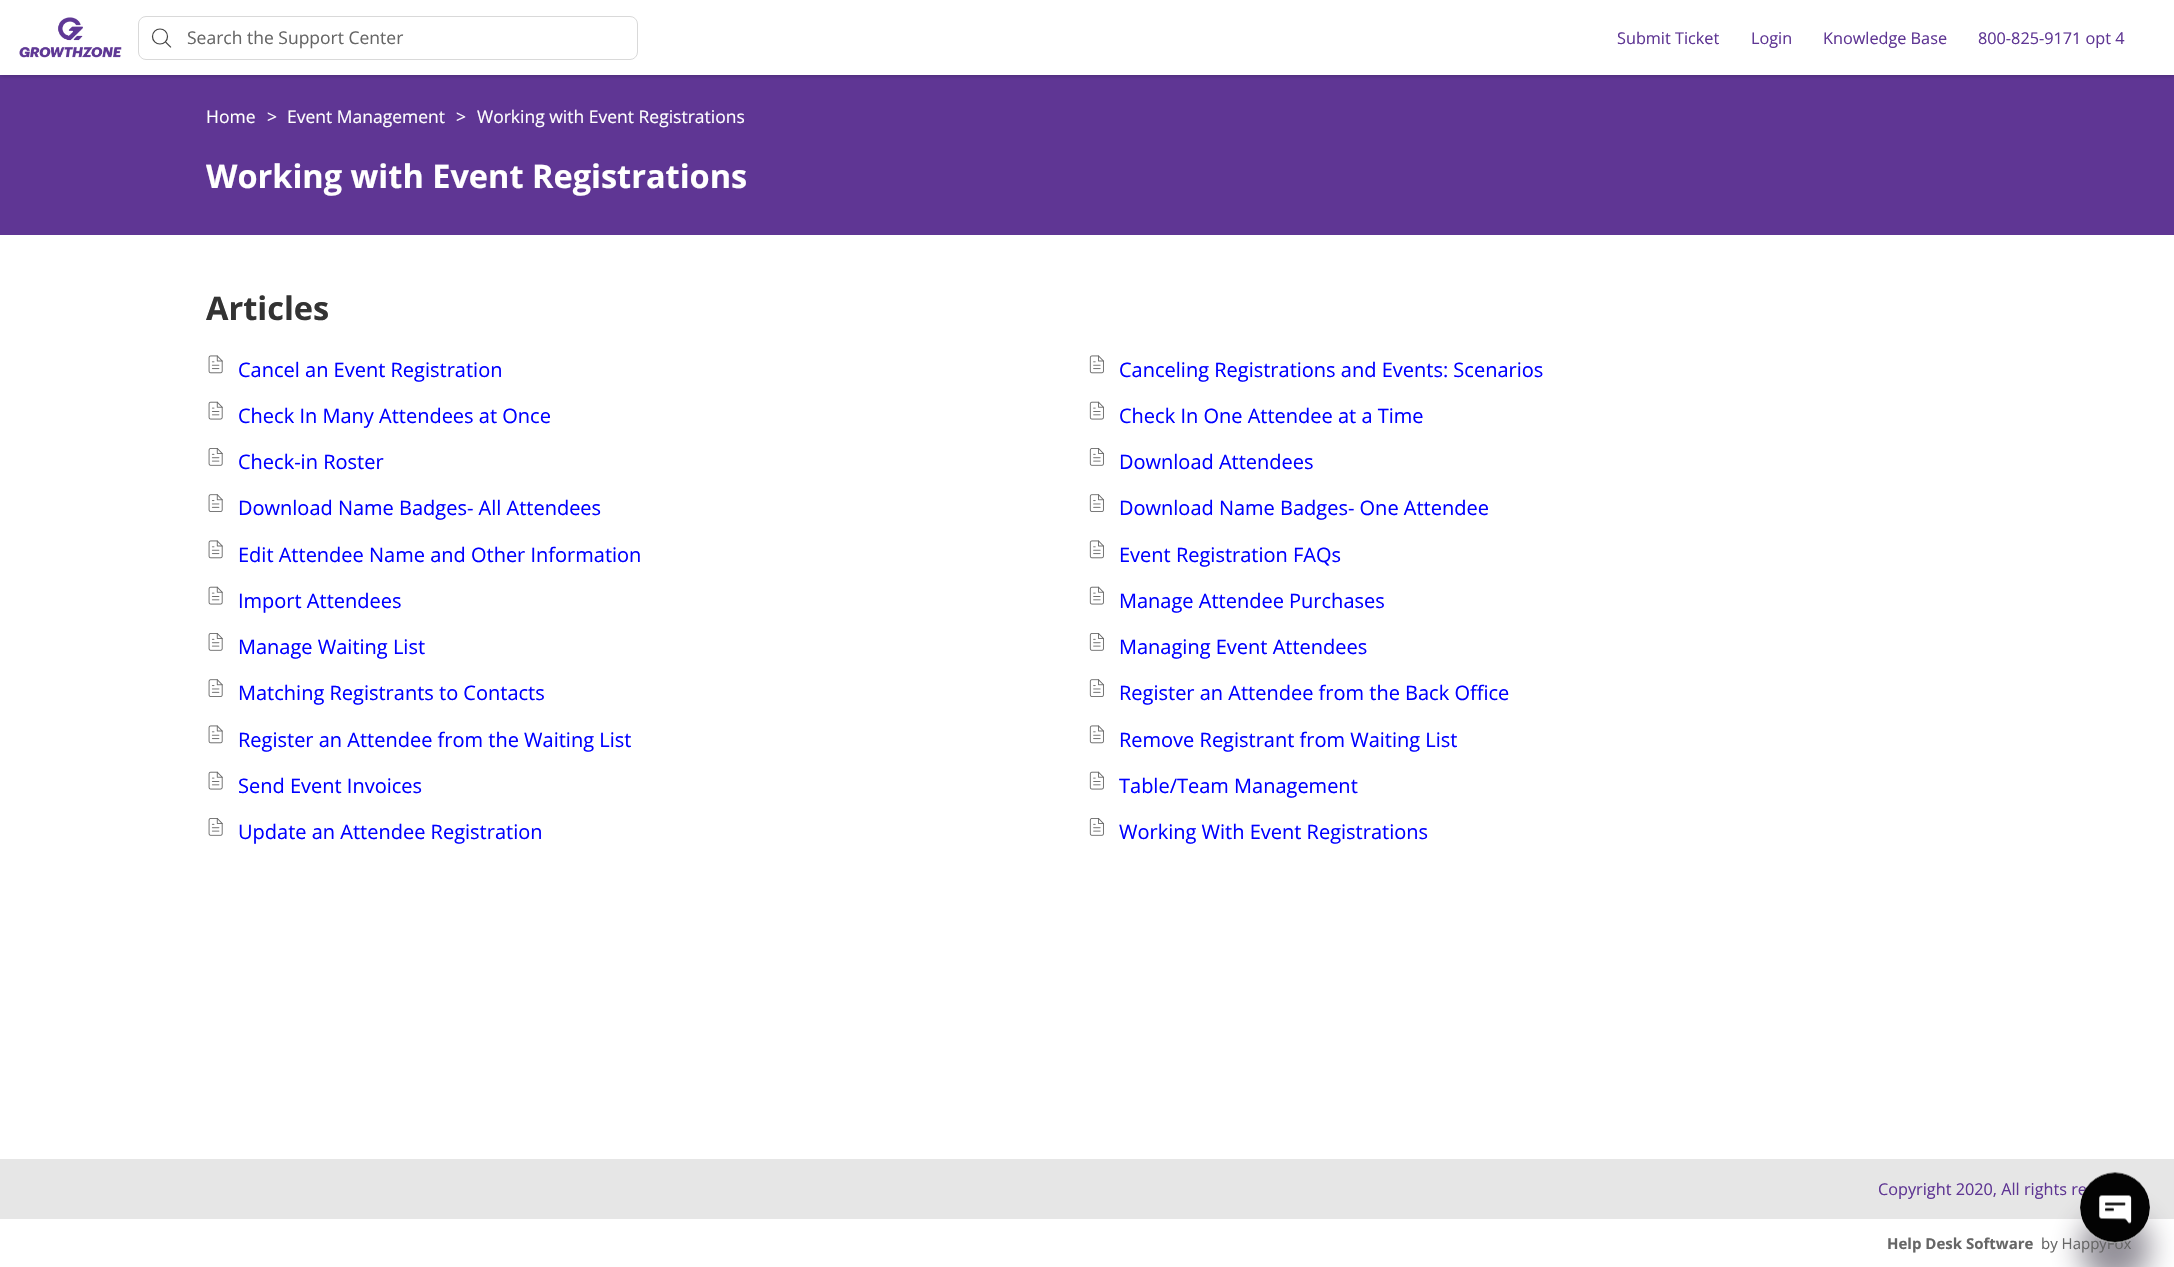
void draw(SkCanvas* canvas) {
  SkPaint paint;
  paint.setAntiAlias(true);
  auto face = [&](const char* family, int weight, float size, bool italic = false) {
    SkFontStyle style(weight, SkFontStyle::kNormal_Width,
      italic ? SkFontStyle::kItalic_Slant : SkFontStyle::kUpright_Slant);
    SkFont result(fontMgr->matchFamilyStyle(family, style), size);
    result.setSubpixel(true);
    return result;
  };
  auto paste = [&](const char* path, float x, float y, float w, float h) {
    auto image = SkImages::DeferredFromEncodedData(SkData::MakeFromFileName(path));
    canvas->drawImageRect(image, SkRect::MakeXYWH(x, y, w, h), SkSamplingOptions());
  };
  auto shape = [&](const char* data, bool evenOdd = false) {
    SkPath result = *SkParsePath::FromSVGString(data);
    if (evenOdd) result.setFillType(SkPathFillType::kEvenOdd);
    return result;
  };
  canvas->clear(0xffffffff);
  paint.setColor(0xff5f3694);
  canvas->drawRect(SkRect::MakeXYWH(0, 75, 2174, 160), paint);
  canvas->save();
  canvas->clipRect(SkRect::MakeXYWH(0, 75, 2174, 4));
  paint.setColor(0x33000000);
  paint.setMaskFilter(SkMaskFilter::MakeBlur(kNormal_SkBlurStyle, 2));
  canvas->drawRect(SkRect::MakeXYWH(0, 1, 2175, 75), paint);
  paint.setMaskFilter(nullptr);
  canvas->restore();
  paste("img/1.png", 19, 17, 103, 41);
  paint.setStroke(true);
  paint.setStrokeWidth(1.2f);
  paint.setColor(0xff424242);
  canvas->drawCircle(160, 36.5f, 7.5f, paint);
  paint.setStrokeCap(SkPaint::kSquare_Cap);
  canvas->drawPath(shape("M166 42.5L170.5 47"), paint);
  paint.setStrokeWidth(1);
  paint.setStrokeCap(SkPaint::kButt_Cap);
  paint.setColor(0xffd9d9d9);
  canvas->drawRoundRect(SkRect::MakeXYWH(138.5f, 16.5f, 499, 43), 7.5f, 7.5f, paint);
  paste("img/2.png", 208, 355, 15, 19);
  paste("img/3.png", 1089, 355, 15, 19);
  paste("img/4.png", 208, 401, 15, 19);
  paste("img/5.png", 1089, 401, 15, 19);
  paste("img/6.png", 208, 448, 15, 18);
  paste("img/7.png", 1089, 448, 15, 18);
  paste("img/8.png", 208, 494, 15, 18);
  paste("img/9.png", 1089, 494, 15, 18);
  paste("img/2.png", 208, 540, 15, 19);
  paste("img/3.png", 1089, 540, 15, 19);
  paste("img/4.png", 208, 586, 15, 19);
  paste("img/5.png", 1089, 586, 15, 19);
  paste("img/6.png", 208, 633, 15, 18);
  paste("img/7.png", 1089, 633, 15, 18);
  paste("img/8.png", 208, 679, 15, 18);
  paste("img/9.png", 1089, 679, 15, 18);
  paste("img/2.png", 208, 725, 15, 19);
  paste("img/3.png", 1089, 725, 15, 19);
  paste("img/4.png", 208, 771, 15, 19);
  paste("img/5.png", 1089, 771, 15, 19);
  paste("img/6.png", 208, 818, 15, 18);
  paste("img/7.png", 1089, 818, 15, 18);
  paint.setStroke(false);
  paint.setColor(0xffe6e6e6);
  canvas->drawRect(SkRect::MakeXYWH(0, 1159, 2174, 60), paint);
  paint.setColor(0x80231e30);
  paint.setMaskFilter(SkMaskFilter::MakeBlur(kNormal_SkBlurStyle, 15));
  canvas->drawRoundRect(SkRect::MakeXYWH(2080, 1213, 70, 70), 35, 35, paint);
  paint.setMaskFilter(nullptr);
  auto f0 = face("Open Sans", 400, 17.5f);
  paint.setColor(0xff666666);
  canvas->drawString("Search the Support Center", 187, 44, f0, paint);
  auto f1 = face("Open Sans", 400, 16.25f);
  paint.setColor(0xff5f3694);
  {
    const struct { const char* s; float x, y; } items[] = {
      {"Submit Ticket", 1617, 44},
      {"Login", 1751, 44},
      {"Knowledge Base", 1823, 44},
      {"800-825-9171 opt 4", 1978, 44},
    };
    for (auto [s, x, y] : items) {
      canvas->drawString(s, x, y, f1, paint);
    }
  }
  paint.setColor(0xffffffff);
  {
    const struct { const char* s; float x, y; } items[] = {
      {"Home", 206, 123},
      {">", 267, 123},
      {"Event Management", 287, 123},
      {">", 456, 123},
      {"Working with Event Registrations", 477, 123},
    };
    for (auto [s, x, y] : items) {
      canvas->drawString(s, x, y, f0, paint);
    }
  }
  auto f2 = face("Open Sans", 700, 32.5f);
  canvas->drawString("Working with Event Registrations", 206, 188, f2, paint);
  paint.setColor(0xff333333);
  canvas->drawString("Articles", 206, 320, f2, paint);
  auto f3 = face("Open Sans", 400, 20);
  paint.setColor(0xff0000ff);
  {
    const struct { const char* s; float x, y; } items[] = {
      {"Cancel an Event Registration", 238, 377},
      {"Canceling Registrations and Events: Scenarios", 1119, 377},
      {"Check In Many Attendees at Once", 238, 423},
      {"Check In One Attendee at a Time", 1119, 423},
      {"Check-in Roster", 238, 469},
      {"Download Attendees", 1119, 469},
      {"Download Name Badges- All Attendees", 238, 515},
      {"Download Name Badges- One Attendee", 1119, 515},
      {"Edit Attendee Name and Other Information", 238, 562},
      {"Event Registration FAQs", 1119, 562},
      {"Import Attendees", 238, 608},
      {"Manage Attendee Purchases", 1119, 608},
      {"Manage Waiting List", 238, 654},
      {"Managing Event Attendees", 1119, 654},
      {"Matching Registrants to Contacts", 238, 700},
      {"Register an Attendee from the Back Office", 1119, 700},
      {"Register an Attendee from the Waiting List", 238, 747},
      {"Remove Registrant from Waiting List", 1119, 747},
      {"Send Event Invoices", 238, 793},
      {"Table/Team Management", 1119, 793},
      {"Update an Attendee Registration", 238, 839},
      {"Working With Event Registrations", 1119, 839},
    };
    for (auto [s, x, y] : items) {
      canvas->drawString(s, x, y, f3, paint);
    }
  }
  paint.setColor(0xff5f3694);
  canvas->drawString("Copyright 2020, All rights re", 1878, 1195, f1, paint);
  auto f4 = face("Open Sans", 700, 15);
  paint.setColor(0xff666666);
  canvas->drawString("Help Desk Software", 1887, 1249, f4, paint);
  auto f5 = face("Open Sans", 400, 15);
  canvas->drawString("by HappyFox", 2041, 1249, f5, paint);
  paint.setColor(0xffffffff);
  canvas->drawCircle(2115, 1208, 35, paint);
  paste("img/10.png", 2080, 1172, 70, 71);
}
